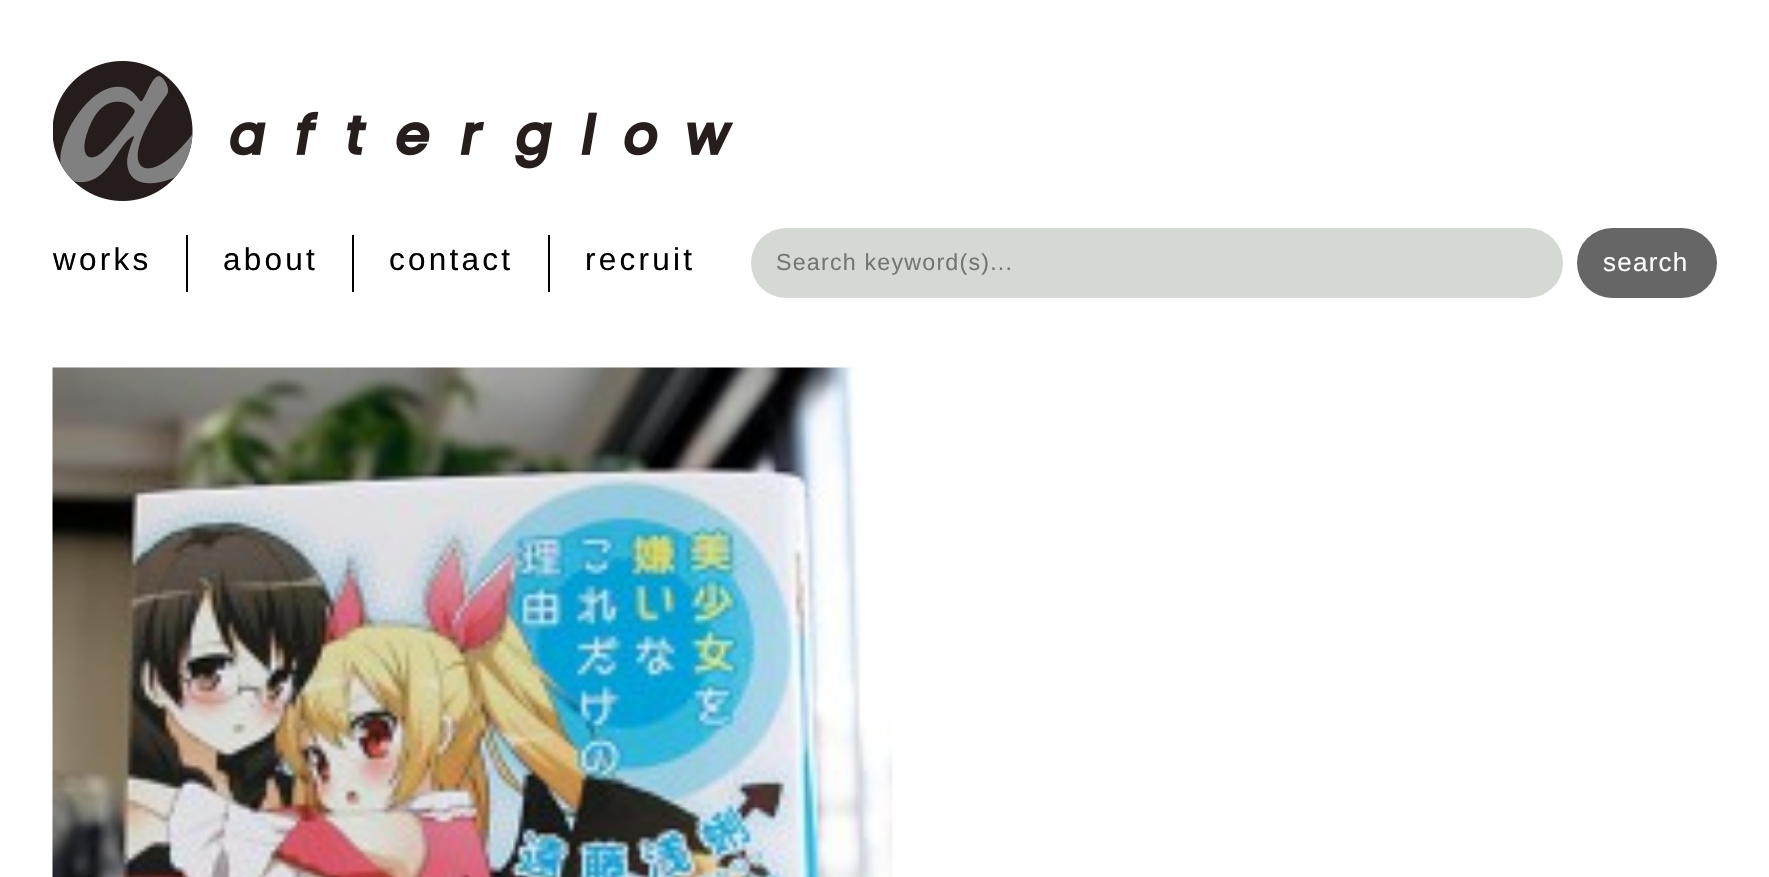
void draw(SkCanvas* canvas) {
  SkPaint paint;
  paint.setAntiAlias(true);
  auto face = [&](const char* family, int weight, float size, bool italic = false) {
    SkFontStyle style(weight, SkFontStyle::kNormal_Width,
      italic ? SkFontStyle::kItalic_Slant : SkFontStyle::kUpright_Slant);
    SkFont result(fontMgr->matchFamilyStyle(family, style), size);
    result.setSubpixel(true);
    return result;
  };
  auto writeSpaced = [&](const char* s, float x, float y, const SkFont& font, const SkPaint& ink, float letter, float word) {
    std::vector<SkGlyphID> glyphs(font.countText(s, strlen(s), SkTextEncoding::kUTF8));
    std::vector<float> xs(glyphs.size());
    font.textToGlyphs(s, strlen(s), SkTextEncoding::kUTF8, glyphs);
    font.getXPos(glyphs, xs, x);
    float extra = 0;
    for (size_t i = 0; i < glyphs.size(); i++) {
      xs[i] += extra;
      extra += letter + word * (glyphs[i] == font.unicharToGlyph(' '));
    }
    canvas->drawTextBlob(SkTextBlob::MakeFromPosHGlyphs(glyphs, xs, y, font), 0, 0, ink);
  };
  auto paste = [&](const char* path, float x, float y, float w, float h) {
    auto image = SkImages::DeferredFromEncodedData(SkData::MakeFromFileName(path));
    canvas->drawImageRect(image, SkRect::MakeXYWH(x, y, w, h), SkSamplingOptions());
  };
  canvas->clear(0xffffffff);
  paste("img/1.png", 53, 61, 680, 140);
  {
    const struct { float x, y, w, h; SkColor color; } items[] = {
      {186, 235, 2, 57, 0xff000000},
      {352, 235, 2, 57, 0xff000000},
      {548, 235, 2, 57, 0xff000000},
    };
    for (auto [x, y, w, h, color] : items) {
      paint.setColor(color);
      canvas->drawRect(SkRect::MakeXYWH(x, y, w, h), paint);
    }
  }
  paint.setColor(0xffd5d9d3);
  canvas->drawRoundRect(SkRect::MakeXYWH(751, 228, 812, 70), 35, 35, paint);
  paint.setColor(0xff666666);
  canvas->drawRoundRect(SkRect::MakeXYWH(1577, 228, 140, 70), 35, 35, paint);
  paste("img/2.png", 52, 367, 841, 510);
  auto f0 = face("Liberation Sans", 400, 31.5f);
  paint.setColor(0xff000000);
  {
    const struct { const char* s; float x, y; } items[] = {
      {"works", 53, 270},
      {"about", 223, 270},
      {"contact", 389, 270},
      {"recruit", 585, 270},
    };
    for (auto [s, x, y] : items) {
      writeSpaced(s, x, y, f0, paint, 3.25f, 0);
    }
  }
  auto f1 = face("Liberation Sans", 400, 23.25f);
  paint.setColor(0xff757575);
  writeSpaced("Search keyword(s)...", 776, 270, f1, paint, 1.2f, 0);
  auto f2 = face("Liberation Sans", 400, 26);
  paint.setColor(0xffffffff);
  writeSpaced("search", 1603, 271, f2, paint, 1.25f, 0);
}
